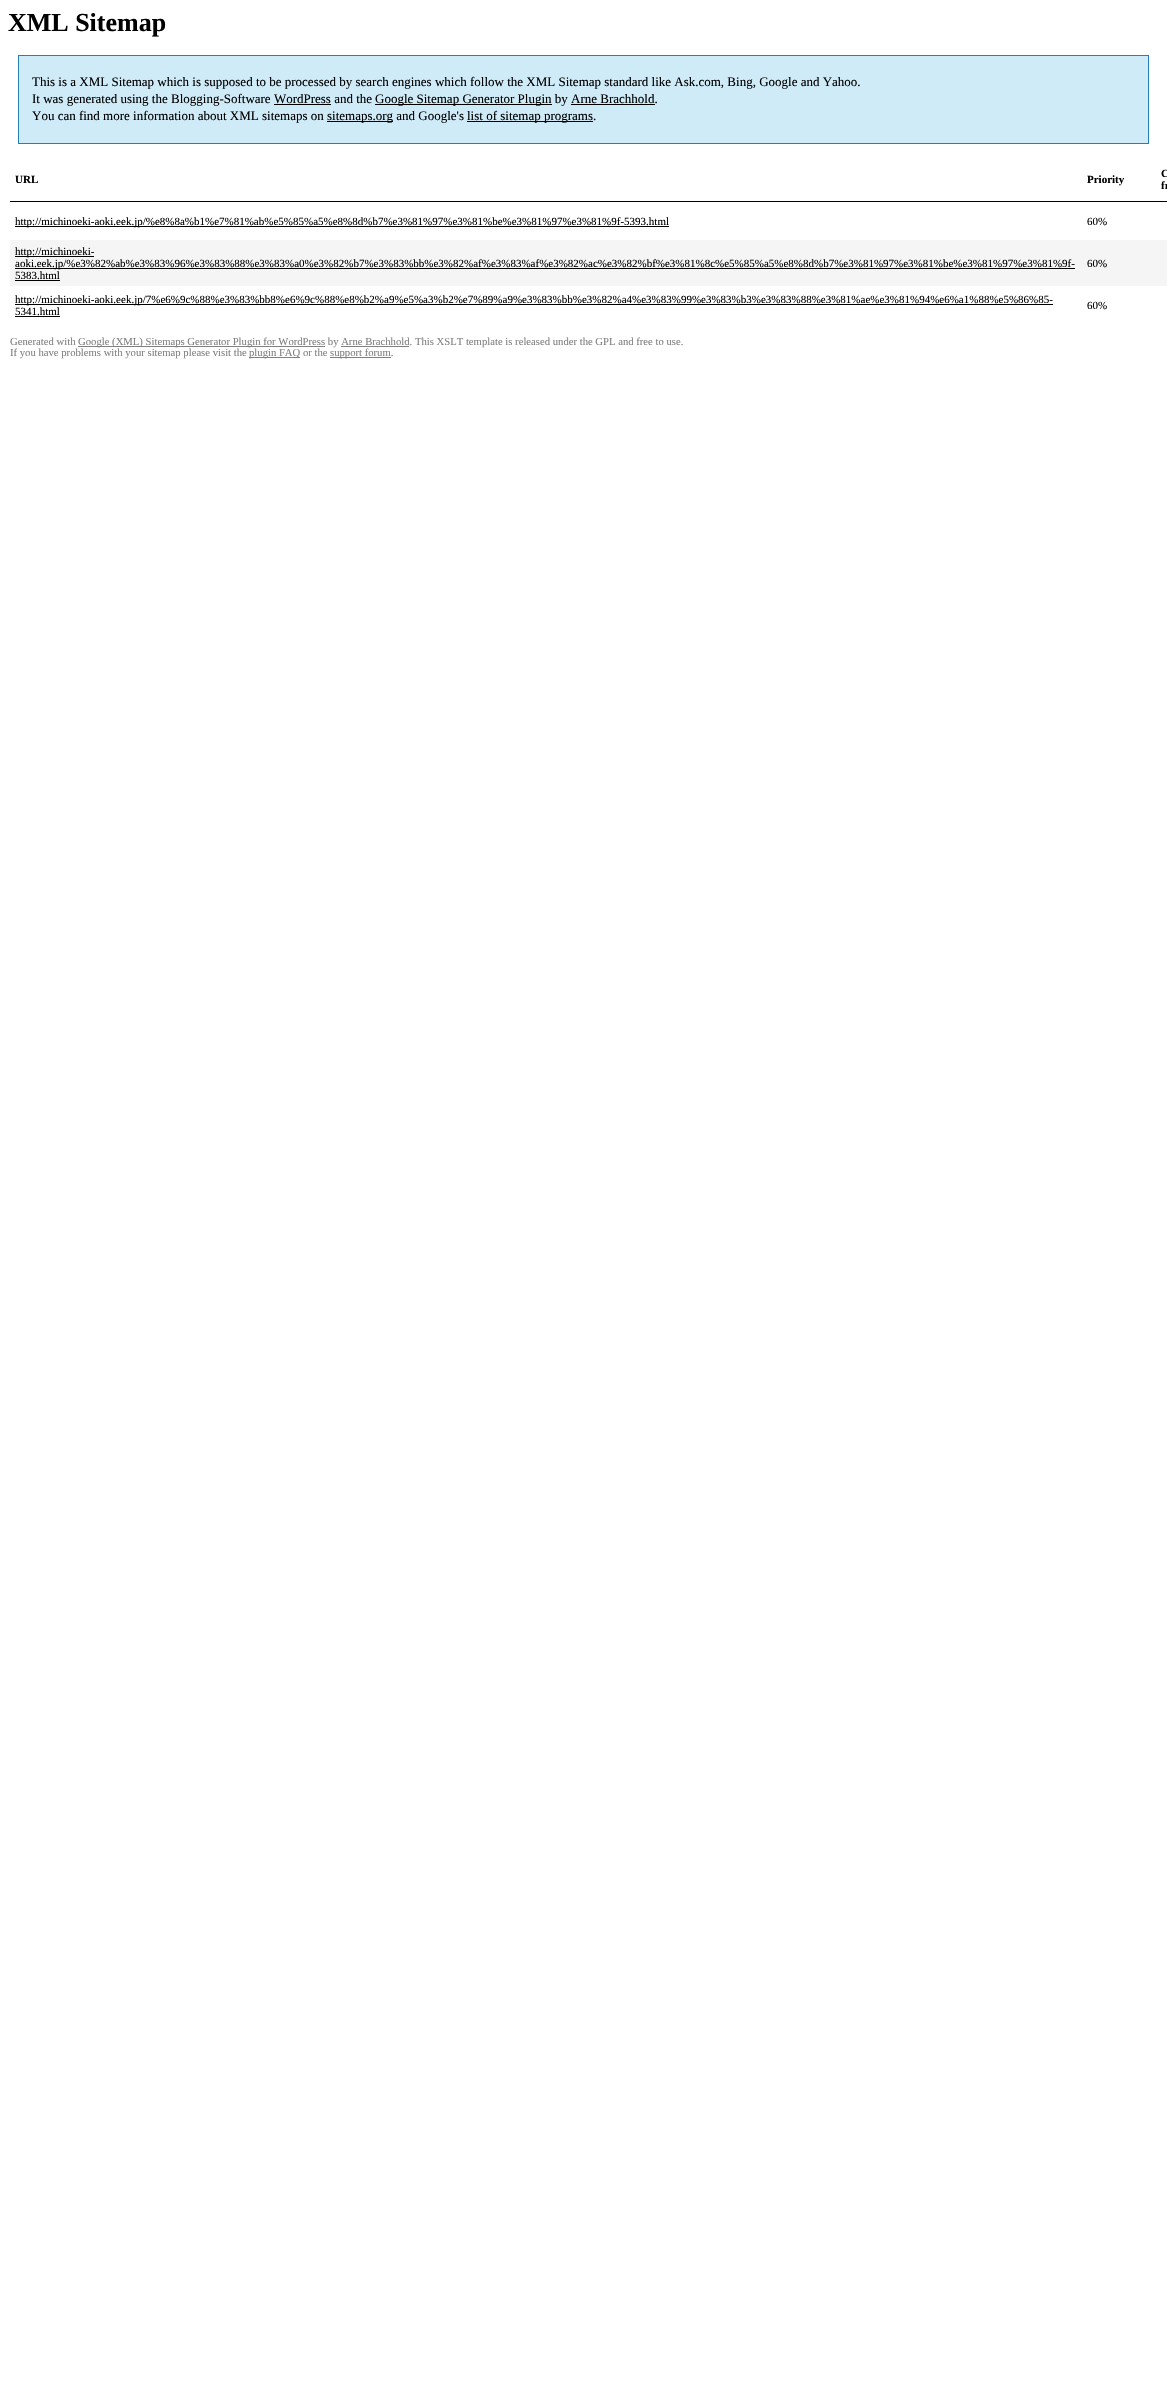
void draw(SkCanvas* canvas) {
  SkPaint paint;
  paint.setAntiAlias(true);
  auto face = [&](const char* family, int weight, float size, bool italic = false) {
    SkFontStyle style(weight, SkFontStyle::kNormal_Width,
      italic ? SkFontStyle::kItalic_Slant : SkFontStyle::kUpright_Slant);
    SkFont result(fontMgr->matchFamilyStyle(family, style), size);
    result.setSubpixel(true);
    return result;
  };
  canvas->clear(0xffffffff);
  paint.setColor(0xffcfebf7);
  canvas->drawRect(SkRect::MakeXYWH(18.5f, 55.5f, 1130, 88), paint);
  paint.setStroke(true);
  paint.setStrokeWidth(1);
  paint.setColor(0xff2580b2);
  canvas->drawRect(SkRect::MakeXYWH(18.5f, 55.5f, 1130, 88), paint);
  paint.setStroke(false);
  {
    const struct { float x, y, w, h; SkColor color; } items[] = {
      {375, 104, 177, 1, 0xff000000},
      {274, 104, 57, 1, 0xff000000},
      {571, 104, 84, 1, 0xff000000},
      {327, 121, 66, 1, 0xff000000},
      {467, 121, 126, 1, 0xff000000},
      {10, 201, 1157, 1, 0xff000000},
      {15, 226, 654, 1, 0xff000000},
      {10, 240, 1157, 46, 0xfff5f5f5},
      {15, 256, 79, 1, 0xff000000},
      {15, 268, 1060, 1, 0xff000000},
      {15, 280, 45, 1, 0xff000000},
      {15, 304, 1038, 1, 0xff000000},
      {15, 316, 45, 1, 0xff000000},
      {78, 346, 247, 1, 0xff808080},
      {341, 346, 68, 1, 0xff808080},
      {249, 357, 51, 1, 0xff808080},
      {330, 357, 61, 1, 0xff808080},
    };
    for (auto [x, y, w, h, color] : items) {
      paint.setColor(color);
      canvas->drawRect(SkRect::MakeXYWH(x, y, w, h), paint);
    }
  }
  auto f0 = face("Liberation Serif", 700, 26);
  paint.setColor(0xff000000);
  canvas->drawString("XML Sitemap", 8, 31, f0, paint);
  auto f1 = face("Liberation Serif", 400, 13);
  {
    const struct { const char* s; float x, y; } items[] = {
      {"This is a XML Sitemap which is supposed to be processed by search engines which follow the XML Sitemap standard like Ask.com, Bing, Google and Yahoo.", 32, 86},
      {"It was generated using the Blogging-Software WordPress and the", 32, 103},
      {"Google Sitemap Generator Plugin by Arne Brachhold.", 375, 103},
      {"You can find more information about XML sitemaps on", 32, 120},
      {"sitemaps.org and Google's", 327, 120},
      {"list of sitemap programs.", 467, 120},
    };
    for (auto [s, x, y] : items) {
      canvas->drawString(s, x, y, f1, paint);
    }
  }
  auto f2 = face("Liberation Serif", 700, 11);
  {
    const struct { const char* s; float x, y; } items[] = {
      {"URL", 15, 183},
      {"Priority", 1087, 183},
      {"C", 1161, 177},
      {"fr", 1161, 189},
    };
    for (auto [s, x, y] : items) {
      canvas->drawString(s, x, y, f2, paint);
    }
  }
  auto f3 = face("Liberation Serif", 400, 11);
  {
    const struct { const char* s; float x, y; } items[] = {
      {"http://michinoeki-aoki.eek.jp/%e8%8a%b1%e7%81%ab%e5%85%a5%e8%8d%b7%e3%81%97%e3%81%be%e3%81%97%e3%81%9f-5393.html", 15, 225},
      {"60%", 1087, 225},
      {"http://michinoeki-", 15, 255},
      {"aoki.eek.jp/%e3%82%ab%e3%83%96%e3%83%88%e3%83%a0%e3%82%b7%e3%83%bb%e3%82%af%e3%83%af%e3%82%ac%e3%82%bf%e3%81%8c%e5%85%a5%e8%8d%b7%e3%81%97%e3%81%be%e3%81%97%e3%81%9f-", 15, 267},
      {"5383.html", 15, 279},
      {"60%", 1087, 267},
      {"http://michinoeki-aoki.eek.jp/7%e6%9c%88%e3%83%bb8%e6%9c%88%e8%b2%a9%e5%a3%b2%e7%89%a9%e3%83%bb%e3%82%a4%e3%83%99%e3%83%b3%e3%83%88%e3%81%ae%e3%81%94%e6%a1%88%e5%86%85-", 15, 303},
      {"5341.html", 15, 315},
      {"60%", 1087, 309},
    };
    for (auto [s, x, y] : items) {
      canvas->drawString(s, x, y, f3, paint);
    }
  }
  auto f4 = face("Liberation Serif", 400, 10.67f);
  paint.setColor(0xff808080);
  {
    const struct { const char* s; float x, y; } items[] = {
      {"Generated with", 10, 345},
      {"Google (XML) Sitemaps Generator Plugin for WordPress by Arne Brachhold. This XSLT template is released under the GPL and free to use.", 78, 345},
      {"If you have problems with your sitemap please visit the", 10, 356},
      {"plugin FAQ or the", 249, 356},
      {"support forum.", 330, 356},
    };
    for (auto [s, x, y] : items) {
      canvas->drawString(s, x, y, f4, paint);
    }
  }
}
